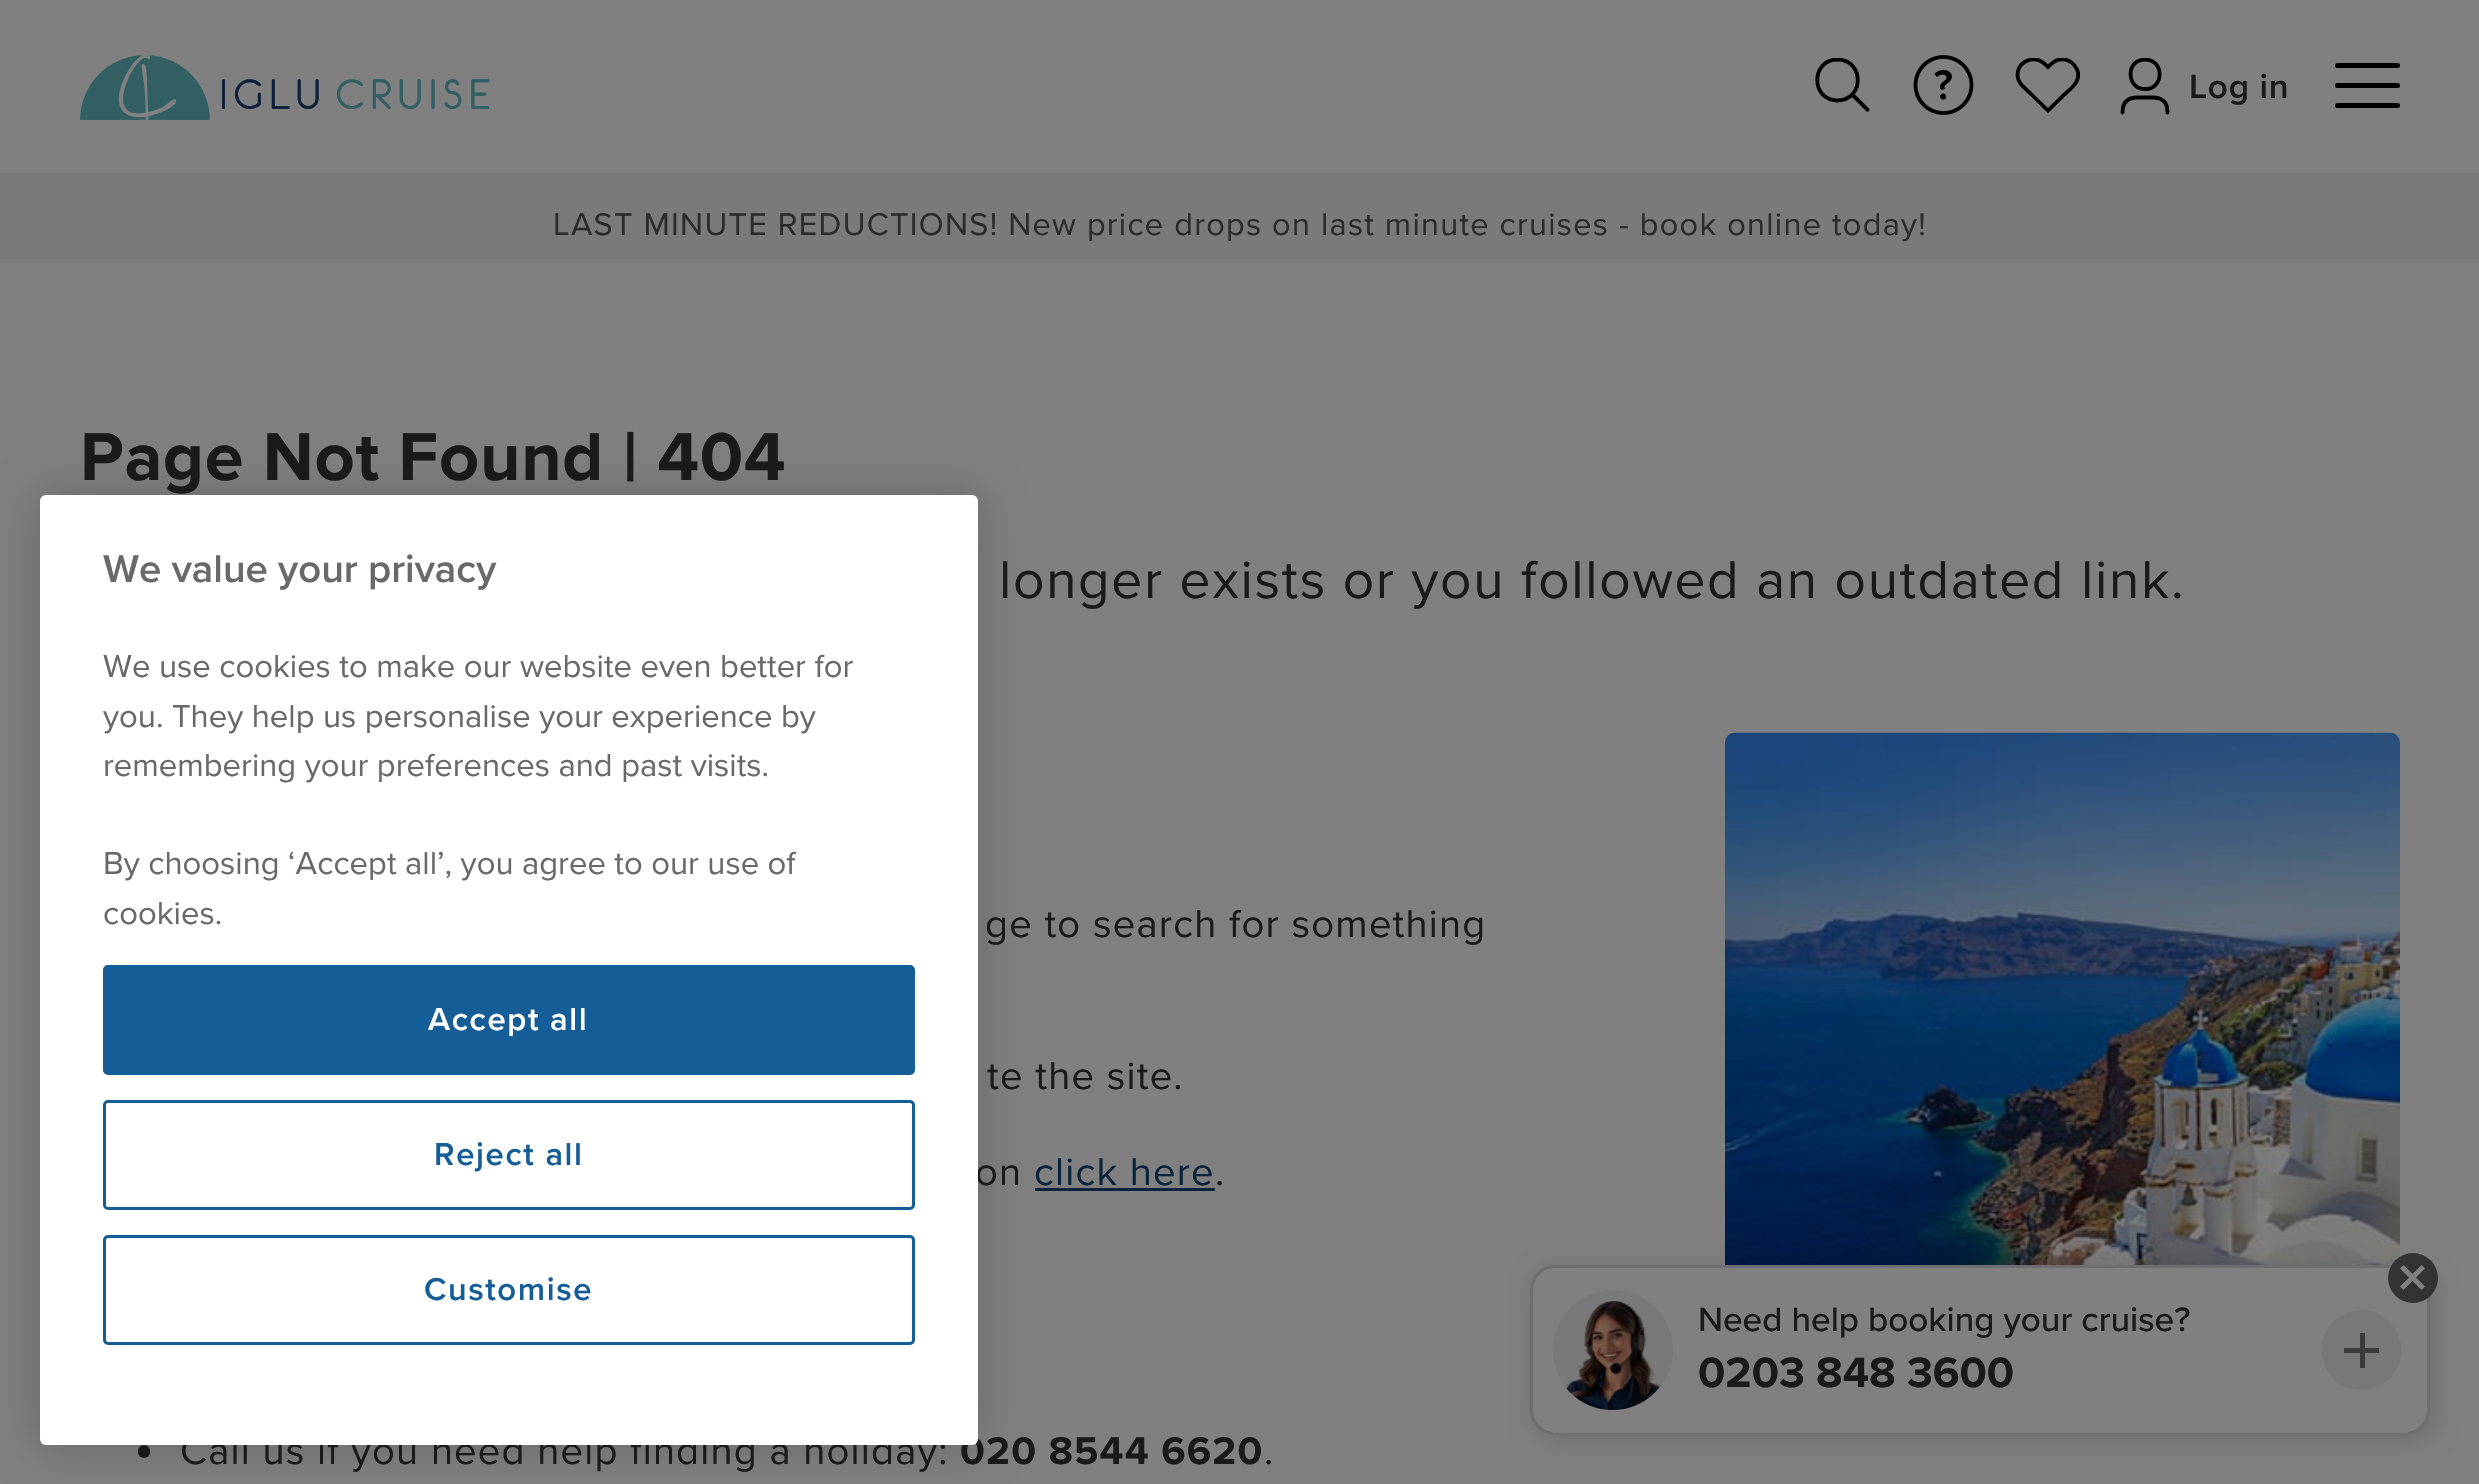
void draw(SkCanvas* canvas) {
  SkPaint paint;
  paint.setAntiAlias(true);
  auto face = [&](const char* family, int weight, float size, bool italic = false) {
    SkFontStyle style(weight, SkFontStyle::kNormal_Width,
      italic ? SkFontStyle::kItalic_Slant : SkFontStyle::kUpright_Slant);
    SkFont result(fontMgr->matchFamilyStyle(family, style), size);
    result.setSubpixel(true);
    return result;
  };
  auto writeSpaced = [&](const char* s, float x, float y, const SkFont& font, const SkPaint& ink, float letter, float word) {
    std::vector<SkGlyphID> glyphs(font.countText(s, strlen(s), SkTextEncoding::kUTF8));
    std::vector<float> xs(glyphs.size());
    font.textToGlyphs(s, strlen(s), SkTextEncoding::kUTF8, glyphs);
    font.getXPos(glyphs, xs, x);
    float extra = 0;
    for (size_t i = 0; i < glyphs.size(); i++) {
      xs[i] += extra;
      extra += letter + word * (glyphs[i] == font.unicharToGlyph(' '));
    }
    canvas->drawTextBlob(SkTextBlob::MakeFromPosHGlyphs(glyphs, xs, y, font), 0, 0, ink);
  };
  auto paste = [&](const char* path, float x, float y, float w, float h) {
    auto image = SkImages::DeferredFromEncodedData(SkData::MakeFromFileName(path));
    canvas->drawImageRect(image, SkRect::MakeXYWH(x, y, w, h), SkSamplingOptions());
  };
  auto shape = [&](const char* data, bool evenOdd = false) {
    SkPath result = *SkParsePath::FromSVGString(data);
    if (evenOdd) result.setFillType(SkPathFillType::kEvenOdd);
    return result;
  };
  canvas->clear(0xff808080);
  paint.setColor(0xff797979);
  canvas->drawRect(SkRect::MakeXYWH(0, 173, 2479, 3), paint);
  paste("img/1.png", 80, 55, 410, 65);
  canvas->save();
  canvas->clipRect(SkRect::MakeXYWH(1815, 58, 58, 55));
  paint.setStroke(true);
  paint.setStrokeWidth(3.8f);
  paint.setColor(0xff000000);
  canvas->drawPath(shape("M1837.5 59.5C1864.5 59.5 1864.5 100.5 1837.5 100.5C1810.5 100.5 1810.5 59.5 1837.5 59.5Z"), paint);
  canvas->restore();
  paint.setStroke(false);
  canvas->drawPath(shape("M1869 108.5C1869.5 109.5 1869.5 110.5 1869 111C1868 112 1867 112 1866 111L1851.5 96.5C1850.5 95.5 1850.5 94.5 1851.5 93.5C1852 93 1853 93 1854 93.5Z"), paint);
  paste("img/2.png", 1913, 55, 61, 60);
  canvas->save();
  canvas->clipRect(SkRect::MakeXYWH(2015, 58, 65, 55));
  paint.setStroke(true);
  canvas->drawPath(shape("M2017.5 75C2017.5 63.5 2029.5 56.5 2039.5 60.5C2043 62 2045.5 64.5 2048 67C2051 64 2053.5 61.5 2057.5 60C2070.5 56.5 2082.5 69.5 2076.5 81.5C2074 86.5 2069 90.5 2065 94L2048 110.5L2031 94C2025.5 88.5 2017.5 83.5 2017.5 75Z"), paint);
  canvas->restore();
  paint.setStrokeCap(SkPaint::kRound_Cap);
  canvas->drawPath(shape("M2122.5 112.5C2122.5 103 2127 97.5 2137.5 97.5H2152.5C2163.5 97.5 2167.5 103 2167.5 112.5"), paint);
  canvas->save();
  canvas->clipRect(SkRect::MakeXYWH(2120, 58, 50, 57));
  paint.setStrokeCap(SkPaint::kButt_Cap);
  canvas->drawPath(shape("M2145 59.5C2164.5 59.5 2164.5 89 2145 89C2126 89 2125.5 59.5 2145 59.5Z"), paint);
  canvas->restore();
  paint.setStroke(false);
  canvas->drawRoundRect(SkRect::MakeXYWH(2335, 63, 65, 5), 2.5f, 2.5f, paint);
  canvas->drawRoundRect(SkRect::MakeXYWH(2335, 83, 65, 5), 2.5f, 2.5f, paint);
  canvas->drawRoundRect(SkRect::MakeXYWH(2335, 103, 65, 5), 2.5f, 2.5f, paint);
  paint.setColor(0xff7a7a7a);
  canvas->drawRect(SkRect::MakeXYWH(0, 176, 2479, 87), paint);
  paint.setColor(0xff09233c);
  canvas->drawRect(SkRect::MakeXYWH(1035, 1188, 180, 3), paint);
  paint.setColor(0xff1a1a1a);
  canvas->drawRoundRect(SkRect::MakeXYWH(138, 1445, 12, 13), 6, 6, paint);
  paste("img/3.png", 1725, 732, 675, 533);
  paint.setColor(0x33000000);
  paint.setMaskFilter(SkMaskFilter::MakeBlur(kNormal_SkBlurStyle, 22.5f));
  canvas->drawRoundRect(SkRect::MakeXYWH(40, 495, 938, 950), 6, 6, paint);
  paint.setMaskFilter(nullptr);
  paint.setColor(0x26000000);
  paint.setMaskFilter(SkMaskFilter::MakeBlur(kNormal_SkBlurStyle, 12.5f));
  canvas->drawRoundRect(SkRect::MakeXYWH(1535, 1270, 900, 170), 25, 25, paint);
  paint.setMaskFilter(nullptr);
  paint.setColor(0xff808080);
  canvas->drawRoundRect(SkRect::MakeXYWH(1531.5f, 1266.5f, 897, 167), 23.5f, 23.5f, paint);
  paint.setStroke(true);
  paint.setStrokeWidth(3);
  paint.setColor(0xff6e6e6e);
  canvas->drawRoundRect(SkRect::MakeXYWH(1531.5f, 1266.5f, 897, 167), 23.5f, 23.5f, paint);
  paint.setStroke(false);
  paint.setColor(0xff808080);
  canvas->drawRect(SkRect::MakeXYWH(1553, 1268, 855, 165), paint);
  paint.setColor(0xff333333);
  canvas->drawCircle(2413, 1278, 25, paint);
  paint.setColor(0xff808080);
  canvas->drawPath(shape("M2421.5 1265L2425 1268.5L2403.5 1290L2400 1286.5Z"), paint);
  canvas->drawPath(shape("M2400 1268.5L2403.5 1265L2425 1286.5L2421.5 1290Z"), paint);
  paint.setColor(0xff797979);
  canvas->drawCircle(1613, 1350, 60, paint);
  paste("img/4.png", 1566, 1301, 95, 109);
  paint.setColor(0xff787878);
  canvas->drawPath(shape("M2333 1322C2349 1306 2374 1306 2390 1322C2405 1337 2405 1363 2390 1378C2374 1394 2349 1394 2333 1378C2318 1363 2318 1337 2333 1322Z"), paint);
  paint.setColor(0xff3b3b3b);
  canvas->drawRect(SkRect::MakeXYWH(2360, 1333, 5, 35), paint);
  canvas->drawRect(SkRect::MakeXYWH(2344, 1348, 35, 5), paint);
  auto f0 = face("Proxima Nova", 600, 35);
  paint.setColor(0xff1a1a1a);
  writeSpaced("Log in", 2189, 98, f0, paint, 0.75f, 0);
  auto f1 = face("Proxima Nova", 400, 32.5f);
  paint.setColor(0xff2b2b2b);
  writeSpaced("LAST MINUTE REDUCTIONS! New price drops on last minute cruises - book online today!", 553, 235, f1, paint, 1.3f, 0);
  auto f2 = face("Proxima Nova", 700, 70);
  paint.setColor(0xff1a1a1a);
  writeSpaced("Page Not Found | 404", 80, 480, f2, paint, 0.7f, 0);
  auto f3 = face("Proxima Nova", 400, 55);
  writeSpaced("longer exists or you followed an outdated link.", 999, 598, f3, paint, 1.65f, 0);
  auto f4 = face("Proxima Nova", 400, 40);
  {
    const struct { const char* s; float x, y; } items[] = {
      {"ge to search for something", 985, 937},
      {"te the site.", 987, 1089},
      {"on", 975, 1185},
    };
    for (auto [s, x, y] : items) {
      writeSpaced(s, x, y, f4, paint, 1.2f, 0);
    }
  }
  paint.setColor(0xff09233c);
  writeSpaced("click here", 1034, 1185, f4, paint, 1.2f, 0);
  paint.setColor(0xff1a1a1a);
  writeSpaced(".", 1215, 1185, f4, paint, 1.2f, 0);
  writeSpaced("Call us if you need help finding a holiday:", 180, 1464, f4, paint, 1.2f, 0);
  auto f5 = face("Proxima Nova", 700, 40);
  writeSpaced("020 8544 6620", 960, 1464, f5, paint, 1.2f, 0);
  writeSpaced(".", 1264, 1464, f4, paint, 1.2f, 0);
  paint.setColor(0xffffffff);
  canvas->drawRoundRect(SkRect::MakeXYWH(40, 495, 938, 950), 6, 6, paint);
  auto f6 = face("Proxima Nova", 600, 40);
  paint.setColor(0xff696969);
  canvas->drawString("We value your privacy", 103, 582, f6, paint);
  auto f7 = face("Proxima Nova", 400, 32.8f);
  {
    const struct { const char* s; float x, y; } items[] = {
      {"We use cookies to make our website even better for", 103, 677},
      {"you. They help us personalise your experience by", 103, 727},
      {"remembering your preferences and past visits.", 103, 776},
      {"By choosing ‘Accept all’, you agree to our use of", 103, 874},
      {"cookies.", 103, 924},
    };
    for (auto [s, x, y] : items) {
      canvas->drawString(s, x, y, f7, paint);
    }
  }
  paint.setColor(0xff155d97);
  canvas->drawRoundRect(SkRect::MakeXYWH(104.5f, 966.5f, 809, 107), 3.5f, 3.5f, paint);
  paint.setStroke(true);
  canvas->drawRoundRect(SkRect::MakeXYWH(104.5f, 966.5f, 809, 107), 3.5f, 3.5f, paint);
  auto f8 = face("Proxima Nova", 600, 32.8f);
  paint.setStroke(false);
  paint.setColor(0xffffffff);
  writeSpaced("Accept all", 428, 1030, f8, paint, 1.6f, 0);
  paint.setStroke(true);
  paint.setColor(0xff155d97);
  canvas->drawRoundRect(SkRect::MakeXYWH(104.5f, 1101.5f, 809, 107), 3.5f, 3.5f, paint);
  paint.setStroke(false);
  writeSpaced("Reject all", 434, 1165, f8, paint, 1.6f, 0);
  paint.setStroke(true);
  canvas->drawRoundRect(SkRect::MakeXYWH(104.5f, 1236.5f, 809, 107), 3.5f, 3.5f, paint);
  paint.setStroke(false);
  writeSpaced("Customise", 424, 1300, f8, paint, 1.6f, 0);
  auto f9 = face("Proxima Nova", 500, 35);
  paint.setColor(0xff1a1a1a);
  canvas->drawString("Need help booking your cruise?", 1698, 1331, f9, paint);
  auto f10 = face("Proxima Nova", 700, 44);
  canvas->drawString("0203 848 3600", 1698, 1387, f10, paint);
}
